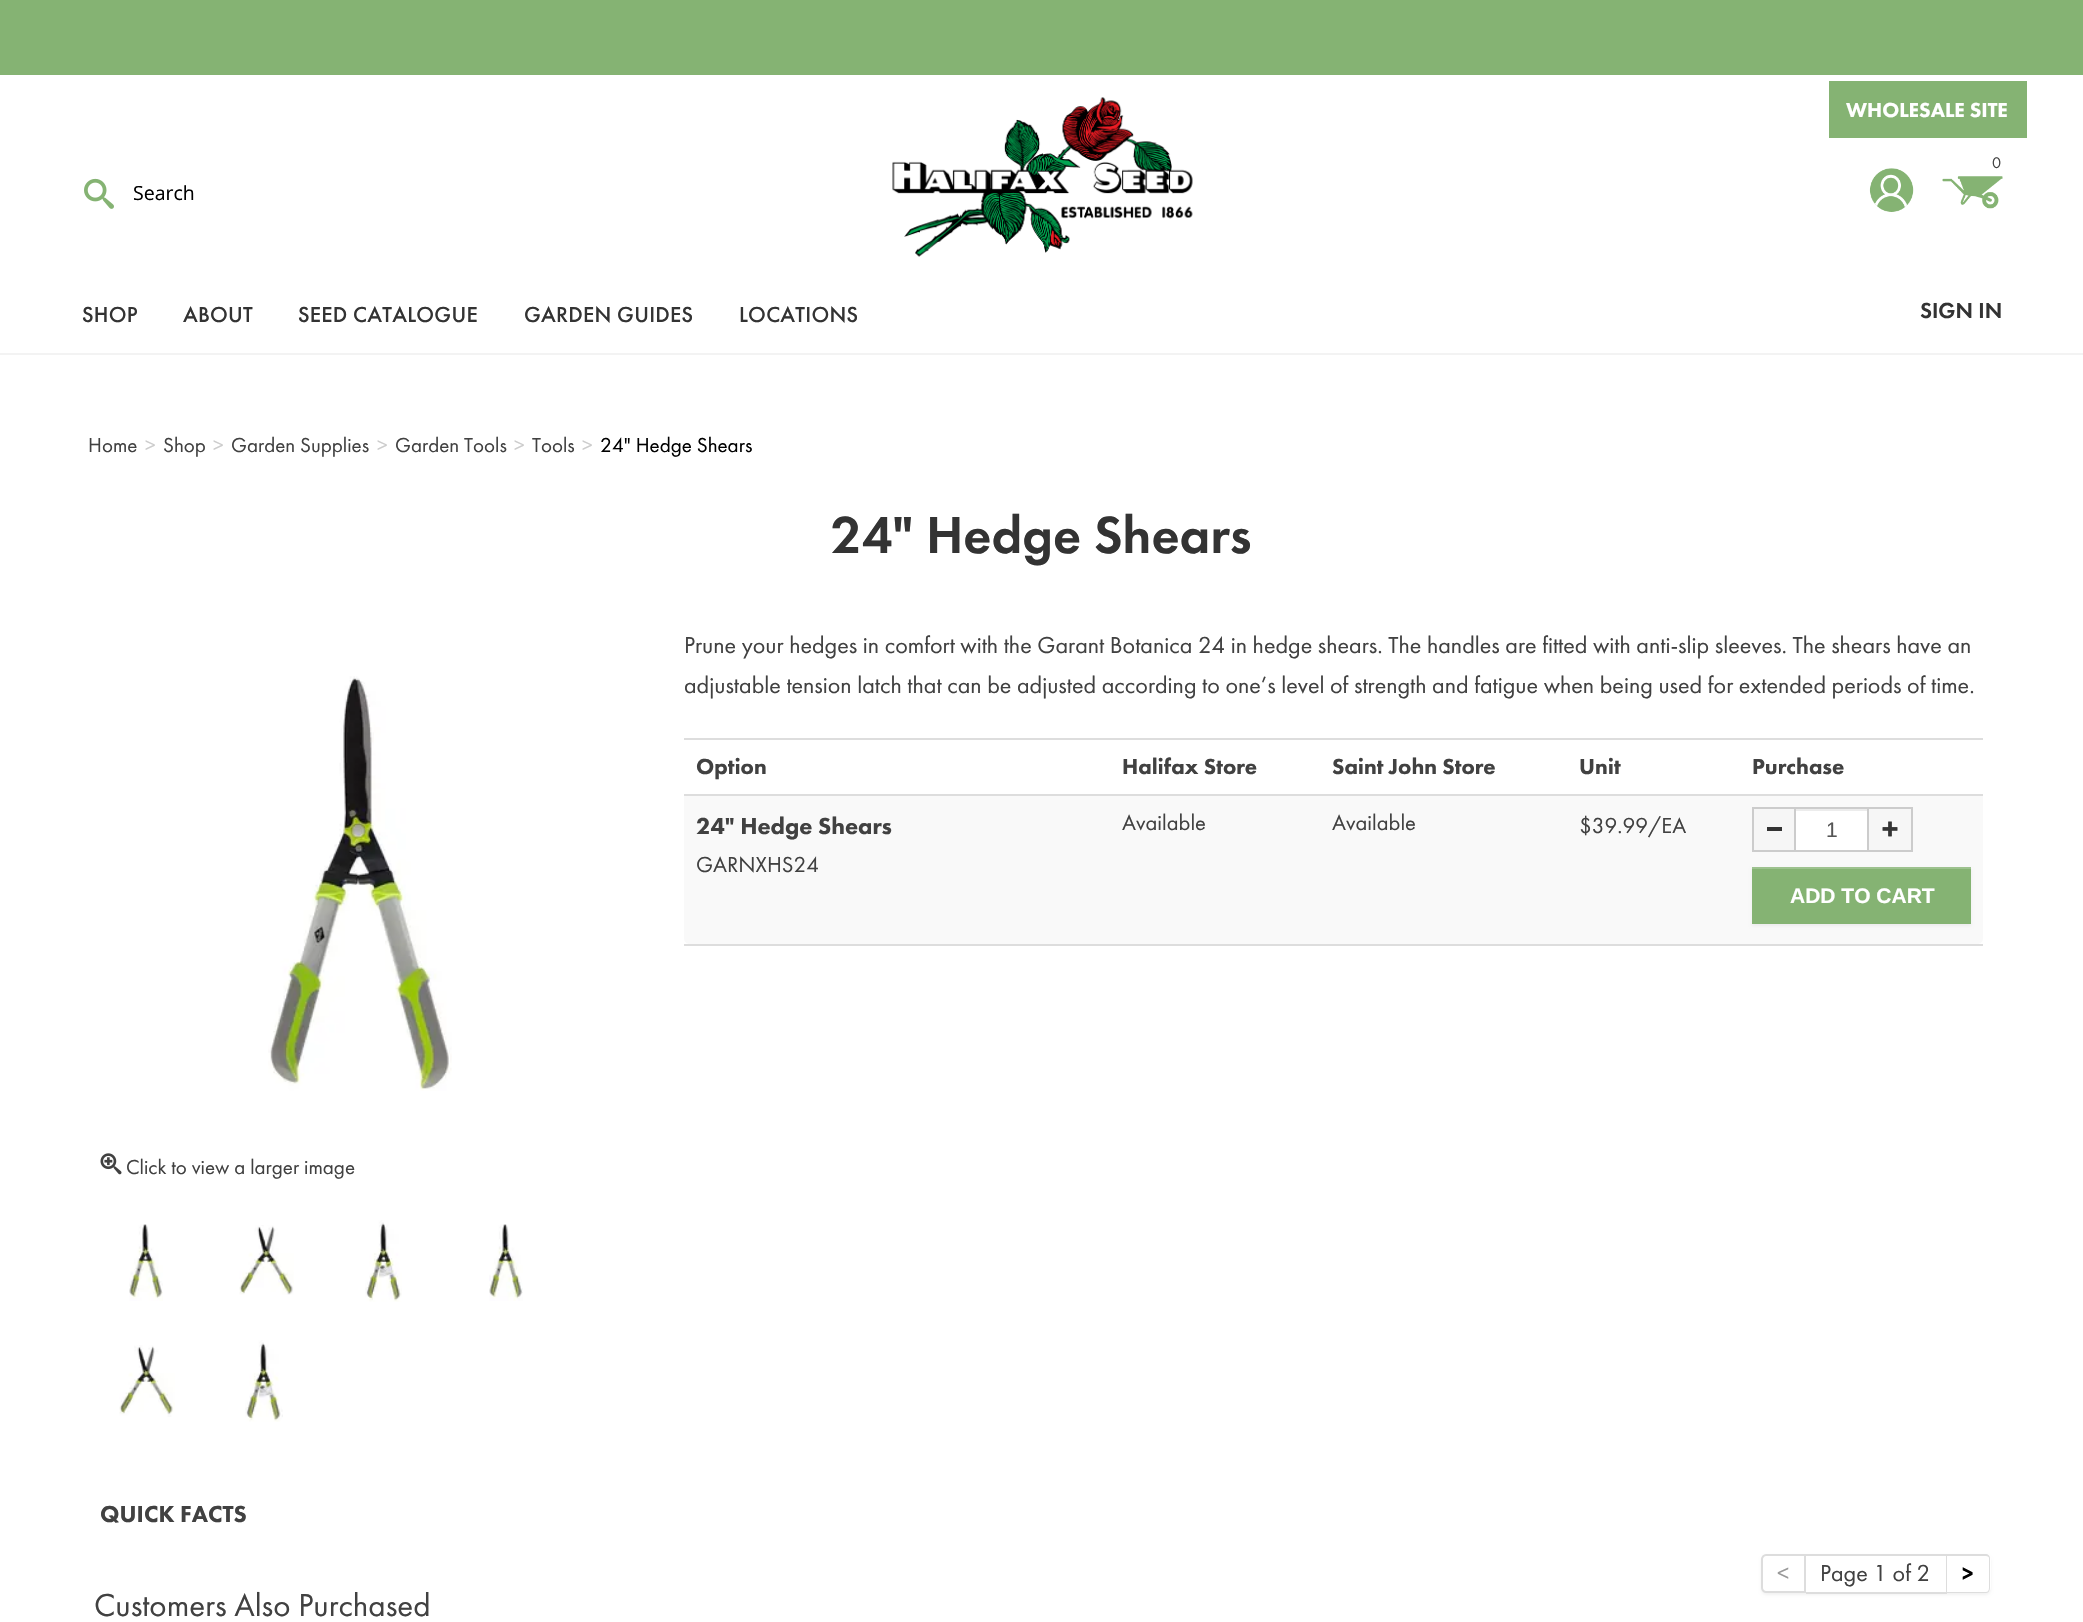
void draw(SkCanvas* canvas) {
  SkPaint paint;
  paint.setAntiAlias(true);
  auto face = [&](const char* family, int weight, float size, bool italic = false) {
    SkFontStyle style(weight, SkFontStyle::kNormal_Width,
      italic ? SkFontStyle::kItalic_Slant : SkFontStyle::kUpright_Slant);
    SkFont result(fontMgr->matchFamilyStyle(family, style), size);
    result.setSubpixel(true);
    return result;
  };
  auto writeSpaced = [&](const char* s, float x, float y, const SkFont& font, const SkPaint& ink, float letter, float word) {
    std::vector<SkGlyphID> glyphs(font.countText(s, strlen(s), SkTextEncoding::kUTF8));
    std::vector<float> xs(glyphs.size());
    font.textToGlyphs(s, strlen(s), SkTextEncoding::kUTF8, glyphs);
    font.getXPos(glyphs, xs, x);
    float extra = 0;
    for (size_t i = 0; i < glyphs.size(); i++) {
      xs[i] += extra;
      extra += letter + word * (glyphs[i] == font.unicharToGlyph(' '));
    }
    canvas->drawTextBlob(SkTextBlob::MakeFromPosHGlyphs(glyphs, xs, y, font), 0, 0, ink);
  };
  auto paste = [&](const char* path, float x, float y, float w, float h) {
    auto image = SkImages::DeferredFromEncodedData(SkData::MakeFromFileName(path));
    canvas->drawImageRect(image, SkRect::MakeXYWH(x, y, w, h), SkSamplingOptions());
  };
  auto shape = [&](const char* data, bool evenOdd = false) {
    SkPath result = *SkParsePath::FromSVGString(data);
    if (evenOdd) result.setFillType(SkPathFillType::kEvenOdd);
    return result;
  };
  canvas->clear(0xffffffff);
  paint.setColor(0xff85b373);
  canvas->drawRect(SkRect::MakeXYWH(0, 0, 2083, 75), paint);
  paint.setColor(0xfff3f3f3);
  canvas->drawRect(SkRect::MakeXYWH(0, 353, 2083, 2), paint);
  paste("img/1.png", 892, 97, 301, 160);
  paint.setColor(0xff85b373);
  canvas->drawRect(SkRect::MakeXYWH(1829, 81, 198, 57), paint);
  paste("img/2.png", 1942, 176, 61, 33);
  paste("img/3.png", 1869, 168, 45, 44);
  paste("img/4.png", 84, 178, 30, 31);
  paint.setColor(0xffdddddd);
  canvas->drawRect(SkRect::MakeXYWH(684, 738, 1299, 2), paint);
  canvas->drawRect(SkRect::MakeXYWH(684, 944, 1299, 2), paint);
  paint.setColor(0xfff9f9f9);
  canvas->drawPath(shape("M684 794H1110V944H690C686.5 944 684 941.5 684 938Z"), paint);
  paint.setColor(0xffdddddd);
  canvas->drawRect(SkRect::MakeXYWH(684, 794, 1056, 2), paint);
  paint.setColor(0xfff9f9f9);
  canvas->drawRect(SkRect::MakeXYWH(1110, 796, 630, 148), paint);
  canvas->drawPath(shape("M1740 794H1983V938C1983 941.5 1980.5 944 1977 944H1740Z"), paint);
  paint.setColor(0xffdddddd);
  canvas->drawRect(SkRect::MakeXYWH(1740, 794, 243, 2), paint);
  paint.setColor(0xfff6f6f6);
  canvas->drawRect(SkRect::MakeXYWH(1753, 808, 159, 43), paint);
  paint.setStroke(true);
  paint.setStrokeWidth(2);
  paint.setColor(0xffcccccc);
  canvas->drawRect(SkRect::MakeXYWH(1753, 808, 159, 43), paint);
  paint.setStroke(false);
  paint.setColor(0xff333333);
  canvas->drawRect(SkRect::MakeXYWH(1767, 827, 15, 4), paint);
  paste("img/5.png", 1882, 821, 16, 16);
  paint.setColor(0xffffffff);
  canvas->drawRect(SkRect::MakeXYWH(1796, 811, 71, 39), paint);
  paint.setColor(0xffececec);
  canvas->drawRect(SkRect::MakeXYWH(1796, 809, 72, 2), paint);
  paint.setStroke(true);
  paint.setColor(0xffcccccc);
  canvas->drawRect(SkRect::MakeXYWH(1795, 808, 73, 43), paint);
  paint.setStroke(false);
  paint.setColor(0x0d000000);
  paint.setMaskFilter(SkMaskFilter::MakeBlur(kNormal_SkBlurStyle, 1.5f));
  canvas->drawRect(SkRect::MakeXYWH(1752, 869, 219, 57), paint);
  paint.setMaskFilter(nullptr);
  paint.setColor(0xff85b373);
  canvas->drawRect(SkRect::MakeXYWH(1752, 869, 219, 55), paint);
  paint.setColor(0xff9dc28f);
  canvas->drawRect(SkRect::MakeXYWH(1752, 867, 219, 2), paint);
  paste("img/6.png", 268, 676, 184, 415);
  paste("img/7.png", 100, 1153, 22, 22);
  paste("img/8.png", 129, 1224, 34, 77);
  paste("img/9.png", 239, 1225, 55, 70);
  paste("img/10.png", 365, 1220, 37, 82);
  paste("img/11.png", 489, 1224, 34, 77);
  paste("img/12.png", 119, 1345, 56, 72);
  paste("img/13.png", 245, 1340, 38, 82);
  canvas->save();
  canvas->clipPath(shape("M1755 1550H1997V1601H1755ZM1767 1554H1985C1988.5 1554 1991 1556.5 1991 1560V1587C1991 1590.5 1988.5 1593 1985 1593H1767C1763.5 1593 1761 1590.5 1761 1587V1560C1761 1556.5 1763.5 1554 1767 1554Z", true), true);
  paint.setColor(0x0d000000);
  paint.setMaskFilter(SkMaskFilter::MakeBlur(kNormal_SkBlurStyle, 1.5f));
  canvas->drawRoundRect(SkRect::MakeXYWH(1761, 1556, 230, 39), 6, 6, paint);
  paint.setMaskFilter(nullptr);
  canvas->restore();
  paint.setStroke(true);
  paint.setColor(0xffdddddd);
  canvas->drawPath(shape("M1766 1555H1805V1592H1766C1764 1592 1762 1590 1762 1588V1559C1762 1557 1764 1555 1766 1555Z"), paint);
  paint.setStroke(false);
  {
    const struct { float x, y, w, h; SkColor color; } items[] = {
      {1806, 1554, 141, 2, 0xffdddddd},
      {1946, 1554, 1, 39, 0xffdddddd},
      {1806, 1592, 141, 2, 0xffdddddd},
    };
    for (auto [x, y, w, h, color] : items) {
      paint.setColor(color);
      canvas->drawRect(SkRect::MakeXYWH(x, y, w, h), paint);
    }
  }
  canvas->drawPath(shape("M1947 1554H1986C1988 1554 1990 1556 1990 1558V1588C1990 1591 1988 1593 1986 1593H1947ZM1947 1556H1986C1988 1556 1989 1557 1989 1558V1588C1989 1590 1988 1592 1986 1592H1947Z", true), paint);
  auto f0 = face("Futura PT", 900, 21);
  paint.setColor(0xffffffff);
  canvas->drawString("WHOLESALE SITE", 1846, 117, f0, paint);
  auto f1 = face("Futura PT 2", 500, 22.5f);
  paint.setColor(0xff333333);
  {
    const struct { const char* s; float x, y; } items[] = {
      {"SHOP", 82, 322},
      {"ABOUT", 183, 322},
      {"SEED CATALOGUE", 298, 322},
      {"GARDEN GUIDES", 524, 322},
      {"LOCATIONS", 739, 322},
    };
    for (auto [s, x, y] : items) {
      writeSpaced(s, x, y, f1, paint, 0.25f, 0);
    }
  }
  auto f2 = face("Futura PT", 400, 16);
  paint.setColor(0xff414141);
  canvas->drawString("0", 1992, 168, f2, paint);
  auto f3 = face("Futura PT", 500, 22.5f);
  paint.setColor(0xff333333);
  canvas->drawString("SIGN IN", 1920, 318, f3, paint);
  auto f4 = face("Open Sans", 400, 19.5f);
  paint.setColor(0xff000000);
  canvas->drawString("Search", 133, 200, f4, paint);
  auto f5 = face("Futura PT", 400, 21);
  paint.setColor(0xff414141);
  canvas->drawString("Home", 88, 452, f5, paint);
  paint.setColor(0xffcccccc);
  canvas->drawString(">", 145, 452, f5, paint);
  paint.setColor(0xff414141);
  canvas->drawString("Shop", 163, 452, f5, paint);
  paint.setColor(0xffcccccc);
  canvas->drawString(">", 213, 452, f5, paint);
  paint.setColor(0xff414141);
  canvas->drawString("Garden Supplies", 231, 452, f5, paint);
  paint.setColor(0xffcccccc);
  canvas->drawString(">", 377, 452, f5, paint);
  paint.setColor(0xff414141);
  canvas->drawString("Garden Tools", 395, 452, f5, paint);
  paint.setColor(0xffcccccc);
  canvas->drawString(">", 514, 452, f5, paint);
  paint.setColor(0xff414141);
  canvas->drawString("Tools", 532, 452, f5, paint);
  paint.setColor(0xffcccccc);
  canvas->drawString(">", 582, 452, f5, paint);
  paint.setColor(0xff000000);
  canvas->drawString("24\" Hedge Shears", 600, 452, f5, paint);
  auto f6 = face("Futura PT", 500, 54);
  paint.setColor(0xff333333);
  canvas->drawString("24\" Hedge Shears", 831, 553, f6, paint);
  auto f7 = face("Futura PT", 400, 24);
  paint.setColor(0xff414141);
  canvas->drawString("Prune your hedges in comfort with the Garant Botanica 24 in hedge shears. The handles are fitted with anti-slip sleeves. The shears have an", 684, 653, f7, paint);
  canvas->drawString("adjustable tension latch that can be adjusted according to one’s level of strength and fatigue when being used for extended periods of time.", 684, 693, f7, paint);
  auto f8 = face("Futura PT", 900, 22.5f);
  {
    const struct { const char* s; float x, y; } items[] = {
      {"Option", 696, 774},
      {"Halifax Store", 1122, 774},
      {"Saint John Store", 1332, 774},
      {"Unit", 1579, 774},
      {"Purchase", 1752, 774},
    };
    for (auto [s, x, y] : items) {
      canvas->drawString(s, x, y, f8, paint);
    }
  }
  auto f9 = face("Futura PT", 900, 24);
  canvas->drawString("24\" Hedge Shears", 696, 834, f9, paint);
  auto f10 = face("Futura PT", 400, 22.5f);
  {
    const struct { const char* s; float x, y; } items[] = {
      {"GARNXHS24", 696, 872},
      {"Available", 1122, 830},
      {"Available", 1332, 830},
      {"$39.99/EA", 1579, 833},
    };
    for (auto [s, x, y] : items) {
      canvas->drawString(s, x, y, f10, paint);
    }
  }
  auto f11 = face("Liberation Sans", 400, 21);
  paint.setColor(0xff555555);
  canvas->drawString("1", 1826, 837, f11, paint);
  auto f12 = face("Liberation Sans", 700, 21);
  paint.setColor(0xffffffff);
  canvas->drawString("ADD TO CART", 1790, 903, f12, paint);
  paint.setColor(0xff414141);
  canvas->drawString("Click to view a larger image", 126, 1174, f5, paint);
  canvas->drawString("QUICK FACTS", 100, 1522, f9, paint);
  paint.setColor(0xff999999);
  canvas->drawString("<", 1777, 1581, f7, paint);
  paint.setColor(0xff414141);
  canvas->drawString("Page 1 of 2", 1820, 1581, f7, paint);
  paint.setColor(0xff000000);
  canvas->drawString(">", 1962, 1581, f8, paint);
  auto f13 = face("Futura PT", 400, 33);
  paint.setColor(0xff414141);
  canvas->drawString("Customers Also Purchased", 94, 1616, f13, paint);
}
